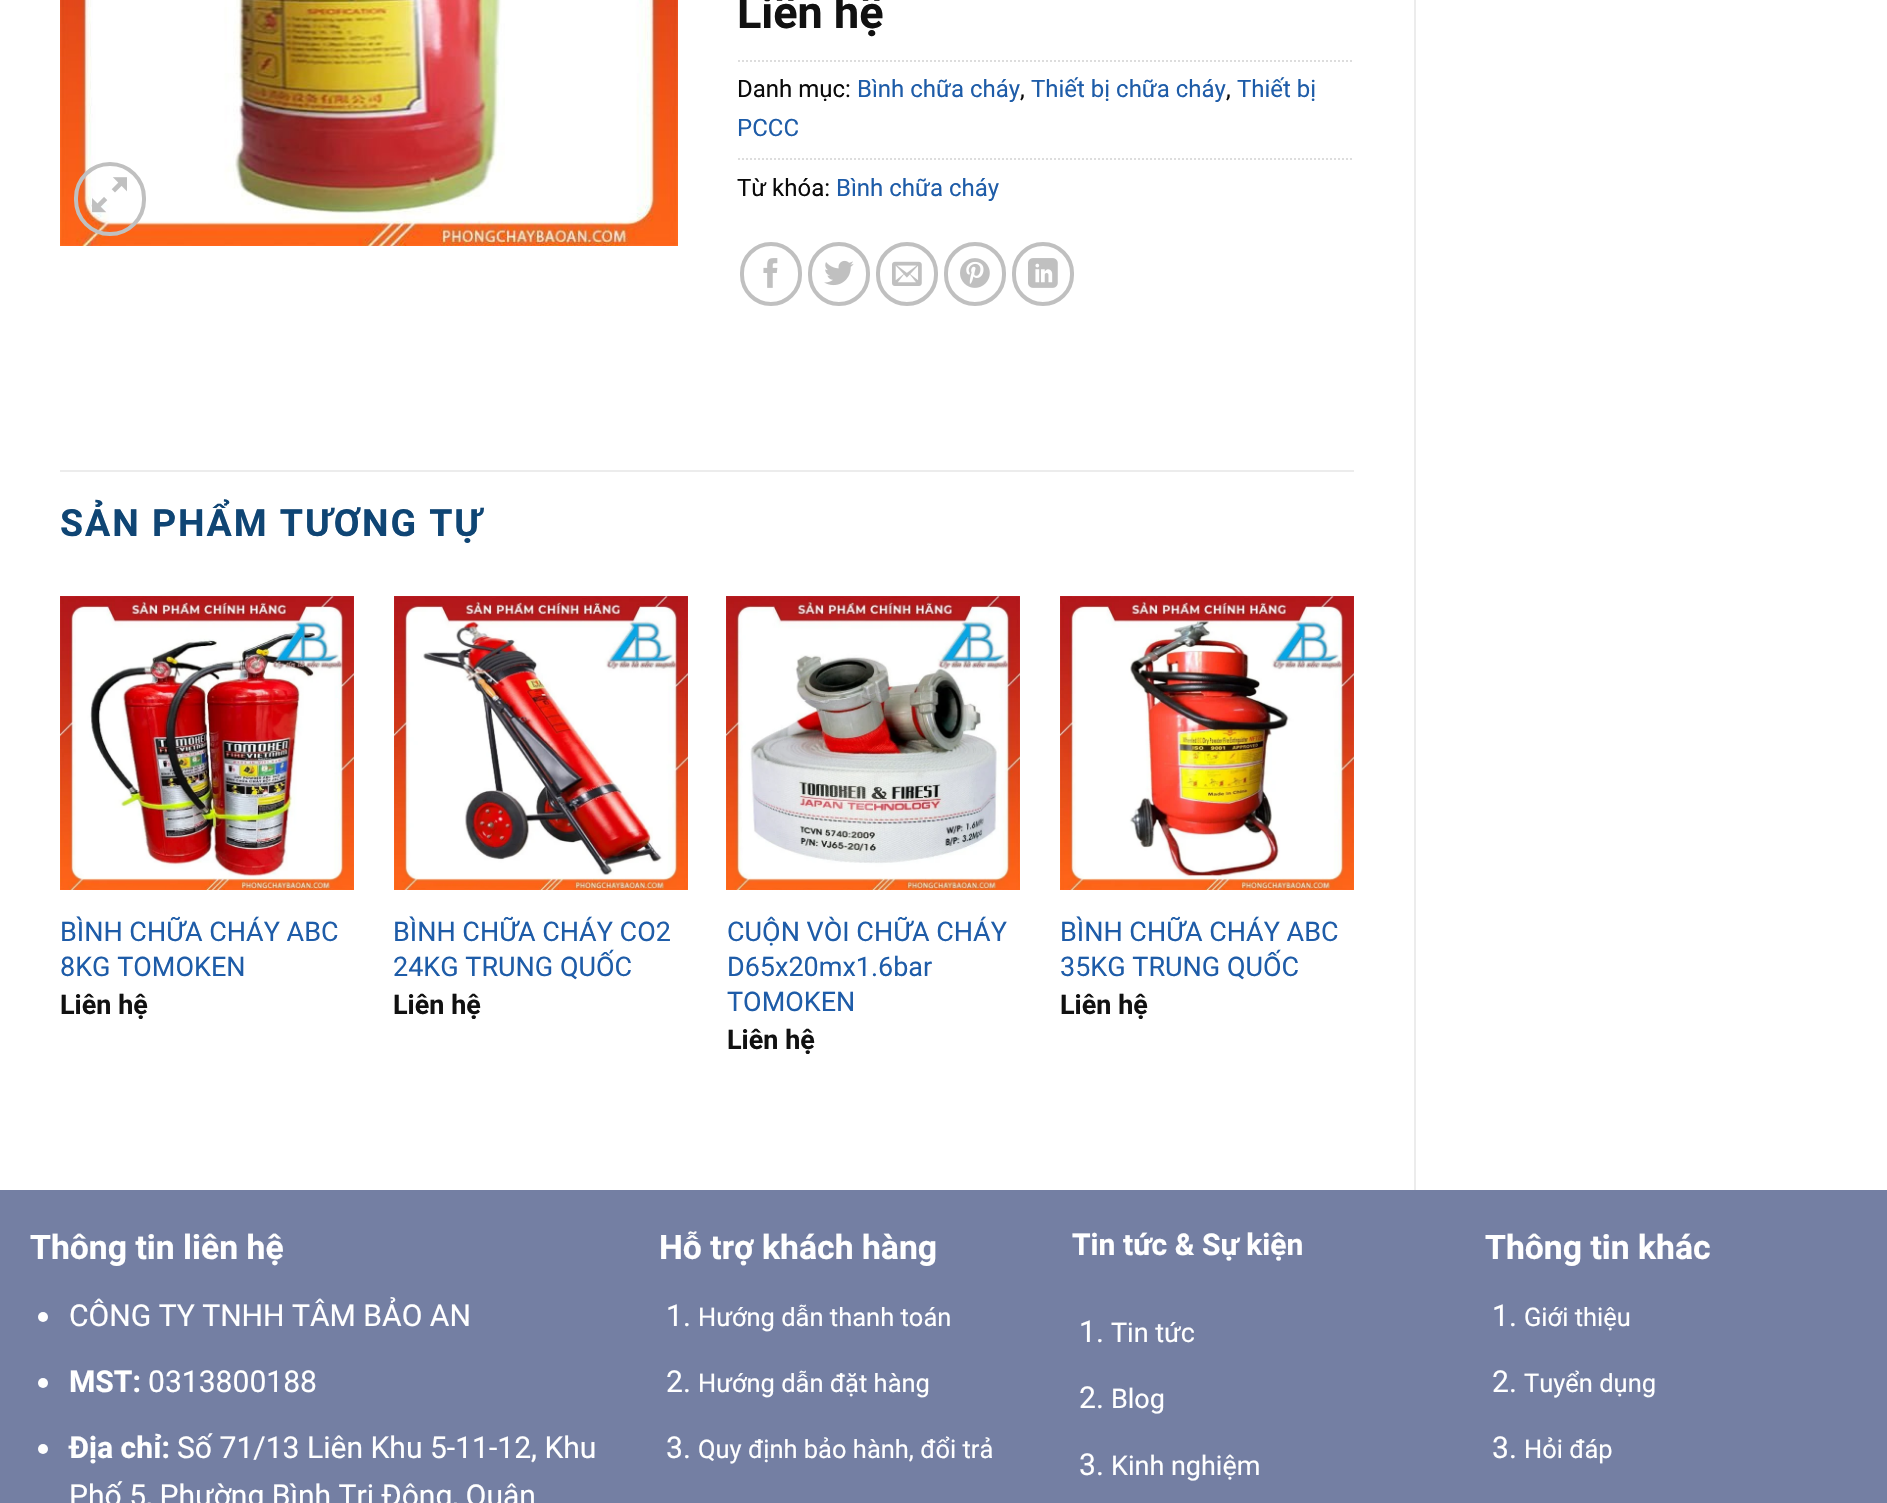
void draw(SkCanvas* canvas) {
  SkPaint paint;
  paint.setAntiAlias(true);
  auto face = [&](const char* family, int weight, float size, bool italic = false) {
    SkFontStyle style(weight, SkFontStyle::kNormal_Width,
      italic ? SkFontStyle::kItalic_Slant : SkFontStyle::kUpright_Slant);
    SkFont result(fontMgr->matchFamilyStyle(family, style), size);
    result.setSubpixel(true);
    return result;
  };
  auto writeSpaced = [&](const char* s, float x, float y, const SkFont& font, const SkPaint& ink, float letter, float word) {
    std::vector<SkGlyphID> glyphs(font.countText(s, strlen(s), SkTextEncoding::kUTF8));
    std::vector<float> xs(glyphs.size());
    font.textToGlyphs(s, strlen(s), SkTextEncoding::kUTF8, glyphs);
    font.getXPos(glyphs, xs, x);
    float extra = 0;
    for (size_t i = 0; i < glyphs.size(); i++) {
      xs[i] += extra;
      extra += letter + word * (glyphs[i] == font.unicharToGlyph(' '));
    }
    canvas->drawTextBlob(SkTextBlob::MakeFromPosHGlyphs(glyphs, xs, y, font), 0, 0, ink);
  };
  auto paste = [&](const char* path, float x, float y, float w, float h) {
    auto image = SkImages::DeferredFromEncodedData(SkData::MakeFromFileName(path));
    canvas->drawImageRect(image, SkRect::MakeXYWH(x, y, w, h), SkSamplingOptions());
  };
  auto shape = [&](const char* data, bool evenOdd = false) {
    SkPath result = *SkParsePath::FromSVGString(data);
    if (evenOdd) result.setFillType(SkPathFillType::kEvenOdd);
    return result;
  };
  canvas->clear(0xffffffff);
  paint.setColor(0xffececec);
  canvas->drawRect(SkRect::MakeXYWH(1414, 0, 2, 1190), paint);
  paste("img/1.png", 60, 0, 618, 246);
  paint.setStroke(true);
  paint.setStrokeWidth(4);
  paint.setColor(0xffc0c0c0);
  canvas->drawRoundRect(SkRect::MakeXYWH(76, 164, 68, 70), 34, 34, paint);
  paste("img/2.png", 92, 177, 35, 36);
  paint.setStrokeWidth(2);
  paint.setColor(0xffdddddd);
  paint.setPathEffect(SkDashPathEffect::Make({{2, 2}}, 0));
  canvas->drawPath(shape("M738 61H1354"), paint);
  paint.setPathEffect(nullptr);
  paint.setPathEffect(SkDashPathEffect::Make({{2, 2}}, 0));
  canvas->drawPath(shape("M738 159H1354"), paint);
  paint.setPathEffect(nullptr);
  paint.setStrokeWidth(4);
  paint.setColor(0xffc0c0c0);
  canvas->drawRoundRect(SkRect::MakeXYWH(742, 244, 58, 60), 29, 29, paint);
  paste("img/3.png", 763, 258, 15, 30);
  canvas->drawRoundRect(SkRect::MakeXYWH(810, 244, 58, 60), 29, 29, paint);
  paste("img/4.png", 824, 260, 30, 26);
  canvas->drawRoundRect(SkRect::MakeXYWH(878, 244, 58, 60), 29, 29, paint);
  paste("img/5.png", 892, 261, 30, 25);
  canvas->drawRoundRect(SkRect::MakeXYWH(946, 244, 58, 60), 29, 29, paint);
  paste("img/6.png", 960, 258, 30, 30);
  canvas->drawRoundRect(SkRect::MakeXYWH(1014, 244, 58, 60), 29, 29, paint);
  paste("img/7.png", 1028, 258, 30, 30);
  paint.setStroke(false);
  paint.setColor(0xffececec);
  canvas->drawRect(SkRect::MakeXYWH(60, 470, 1294, 2), paint);
  paste("img/8.png", 60, 596, 294, 294);
  paste("img/9.png", 394, 596, 294, 294);
  paste("img/10.png", 726, 596, 294, 294);
  paste("img/11.png", 1060, 596, 294, 294);
  paint.setColor(0xff747fa3);
  canvas->drawRect(SkRect::MakeXYWH(0, 1190, 1887, 313), paint);
  paint.setColor(0xffffffff);
  canvas->drawCircle(43, 1317, 5, paint);
  canvas->drawCircle(43, 1383, 5, paint);
  canvas->drawCircle(43, 1449, 5, paint);
  auto f0 = face("Roboto", 700, 45);
  paint.setColor(0xff111111);
  canvas->drawString("Liên hệ", 737, 28, f0, paint);
  auto f1 = face("Roboto", 400, 24);
  paint.setColor(0xff0a0a0a);
  canvas->drawString("Danh mục:", 737, 97, f1, paint);
  paint.setColor(0xff1e5ca8);
  canvas->drawString("Bình chữa cháy", 857, 97, f1, paint);
  paint.setColor(0xff0a0a0a);
  canvas->drawString(",", 1020, 97, f1, paint);
  paint.setColor(0xff1e5ca8);
  canvas->drawString("Thiết bị chữa cháy", 1031, 97, f1, paint);
  paint.setColor(0xff0a0a0a);
  canvas->drawString(",", 1226, 97, f1, paint);
  paint.setColor(0xff1e5ca8);
  canvas->drawString("Thiết bị", 1237, 97, f1, paint);
  canvas->drawString("PCCC", 737, 136, f1, paint);
  paint.setColor(0xff0a0a0a);
  canvas->drawString("Từ khóa:", 737, 196, f1, paint);
  paint.setColor(0xff1e5ca8);
  canvas->drawString("Bình chữa cháy", 836, 196, f1, paint);
  auto f2 = face("Roboto", 700, 37.6f);
  paint.setColor(0xff0f4574);
  writeSpaced("SẢN PHẨM TƯƠNG TỰ", 60, 536, f2, paint, 1.9f, 0);
  auto f3 = face("Roboto", 400, 27);
  paint.setColor(0xff1e5ca8);
  canvas->drawString("BÌNH CHỮA CHÁY ABC", 60, 941, f3, paint);
  canvas->drawString("8KG TOMOKEN", 60, 976, f3, paint);
  auto f4 = face("Roboto", 700, 27);
  paint.setColor(0xff111111);
  canvas->drawString("Liên hệ", 60, 1014, f4, paint);
  paint.setColor(0xff1e5ca8);
  canvas->drawString("BÌNH CHỮA CHÁY CO2", 393, 941, f3, paint);
  canvas->drawString("24KG TRUNG QUỐC", 393, 976, f3, paint);
  paint.setColor(0xff111111);
  canvas->drawString("Liên hệ", 393, 1014, f4, paint);
  paint.setColor(0xff1e5ca8);
  {
    const struct { const char* s; float x, y; } items[] = {
      {"CUỘN VÒI CHỮA CHÁY", 727, 941},
      {"D65x20mx1.6bar", 727, 976},
      {"TOMOKEN", 727, 1011},
    };
    for (auto [s, x, y] : items) {
      canvas->drawString(s, x, y, f3, paint);
    }
  }
  paint.setColor(0xff111111);
  canvas->drawString("Liên hệ", 727, 1049, f4, paint);
  paint.setColor(0xff1e5ca8);
  canvas->drawString("BÌNH CHỮA CHÁY ABC", 1060, 941, f3, paint);
  canvas->drawString("35KG TRUNG QUỐC", 1060, 976, f3, paint);
  paint.setColor(0xff111111);
  canvas->drawString("Liên hệ", 1060, 1014, f4, paint);
  auto f5 = face("Roboto", 700, 33.75f);
  paint.setColor(0xffffffff);
  canvas->drawString("Thông tin liên hệ", 30, 1259, f5, paint);
  auto f6 = face("Roboto", 400, 30.1f);
  canvas->drawString("CÔNG TY TNHH TÂM BẢO AN", 69, 1326, f6, paint);
  auto f7 = face("Roboto", 700, 30.1f);
  canvas->drawString("MST:", 69, 1392, f7, paint);
  canvas->drawString("0313800188", 148, 1392, f6, paint);
  canvas->drawString("Địa chỉ:", 69, 1458, f7, paint);
  canvas->drawString("Số 71/13 Liên Khu 5-11-12, Khu", 177, 1458, f6, paint);
  canvas->drawString("Phố 5, Phường Bình Trị Đông, Quận", 69, 1506, f6, paint);
  canvas->drawString("Hỗ trợ khách hàng", 659, 1259, f5, paint);
  canvas->drawString("1.", 666, 1326, f6, paint);
  auto f8 = face("Roboto", 400, 25.5f);
  canvas->drawString("Hướng dẫn thanh toán", 698, 1326, f8, paint);
  canvas->drawString("2.", 666, 1392, f6, paint);
  canvas->drawString("Hướng dẫn đặt hàng", 698, 1392, f8, paint);
  canvas->drawString("3.", 666, 1458, f6, paint);
  canvas->drawString("Quy định bảo hành, đổi trả", 698, 1458, f8, paint);
  canvas->drawString("Tin tức & Sự kiện", 1072, 1255, f7, paint);
  canvas->drawString("1.", 1079, 1342, f6, paint);
  canvas->drawString("Tin tức", 1111, 1342, f3, paint);
  canvas->drawString("2.", 1079, 1408, f6, paint);
  canvas->drawString("Blog", 1111, 1408, f3, paint);
  canvas->drawString("3.", 1079, 1475, f6, paint);
  canvas->drawString("Kinh nghiệm", 1111, 1475, f3, paint);
  canvas->drawString("Thông tin khác", 1485, 1259, f5, paint);
  canvas->drawString("1.", 1492, 1326, f6, paint);
  canvas->drawString("Giới thiệu", 1524, 1326, f8, paint);
  canvas->drawString("2.", 1492, 1392, f6, paint);
  canvas->drawString("Tuyển dụng", 1524, 1392, f8, paint);
  canvas->drawString("3.", 1492, 1458, f6, paint);
  canvas->drawString("Hỏi đáp", 1524, 1458, f8, paint);
}
